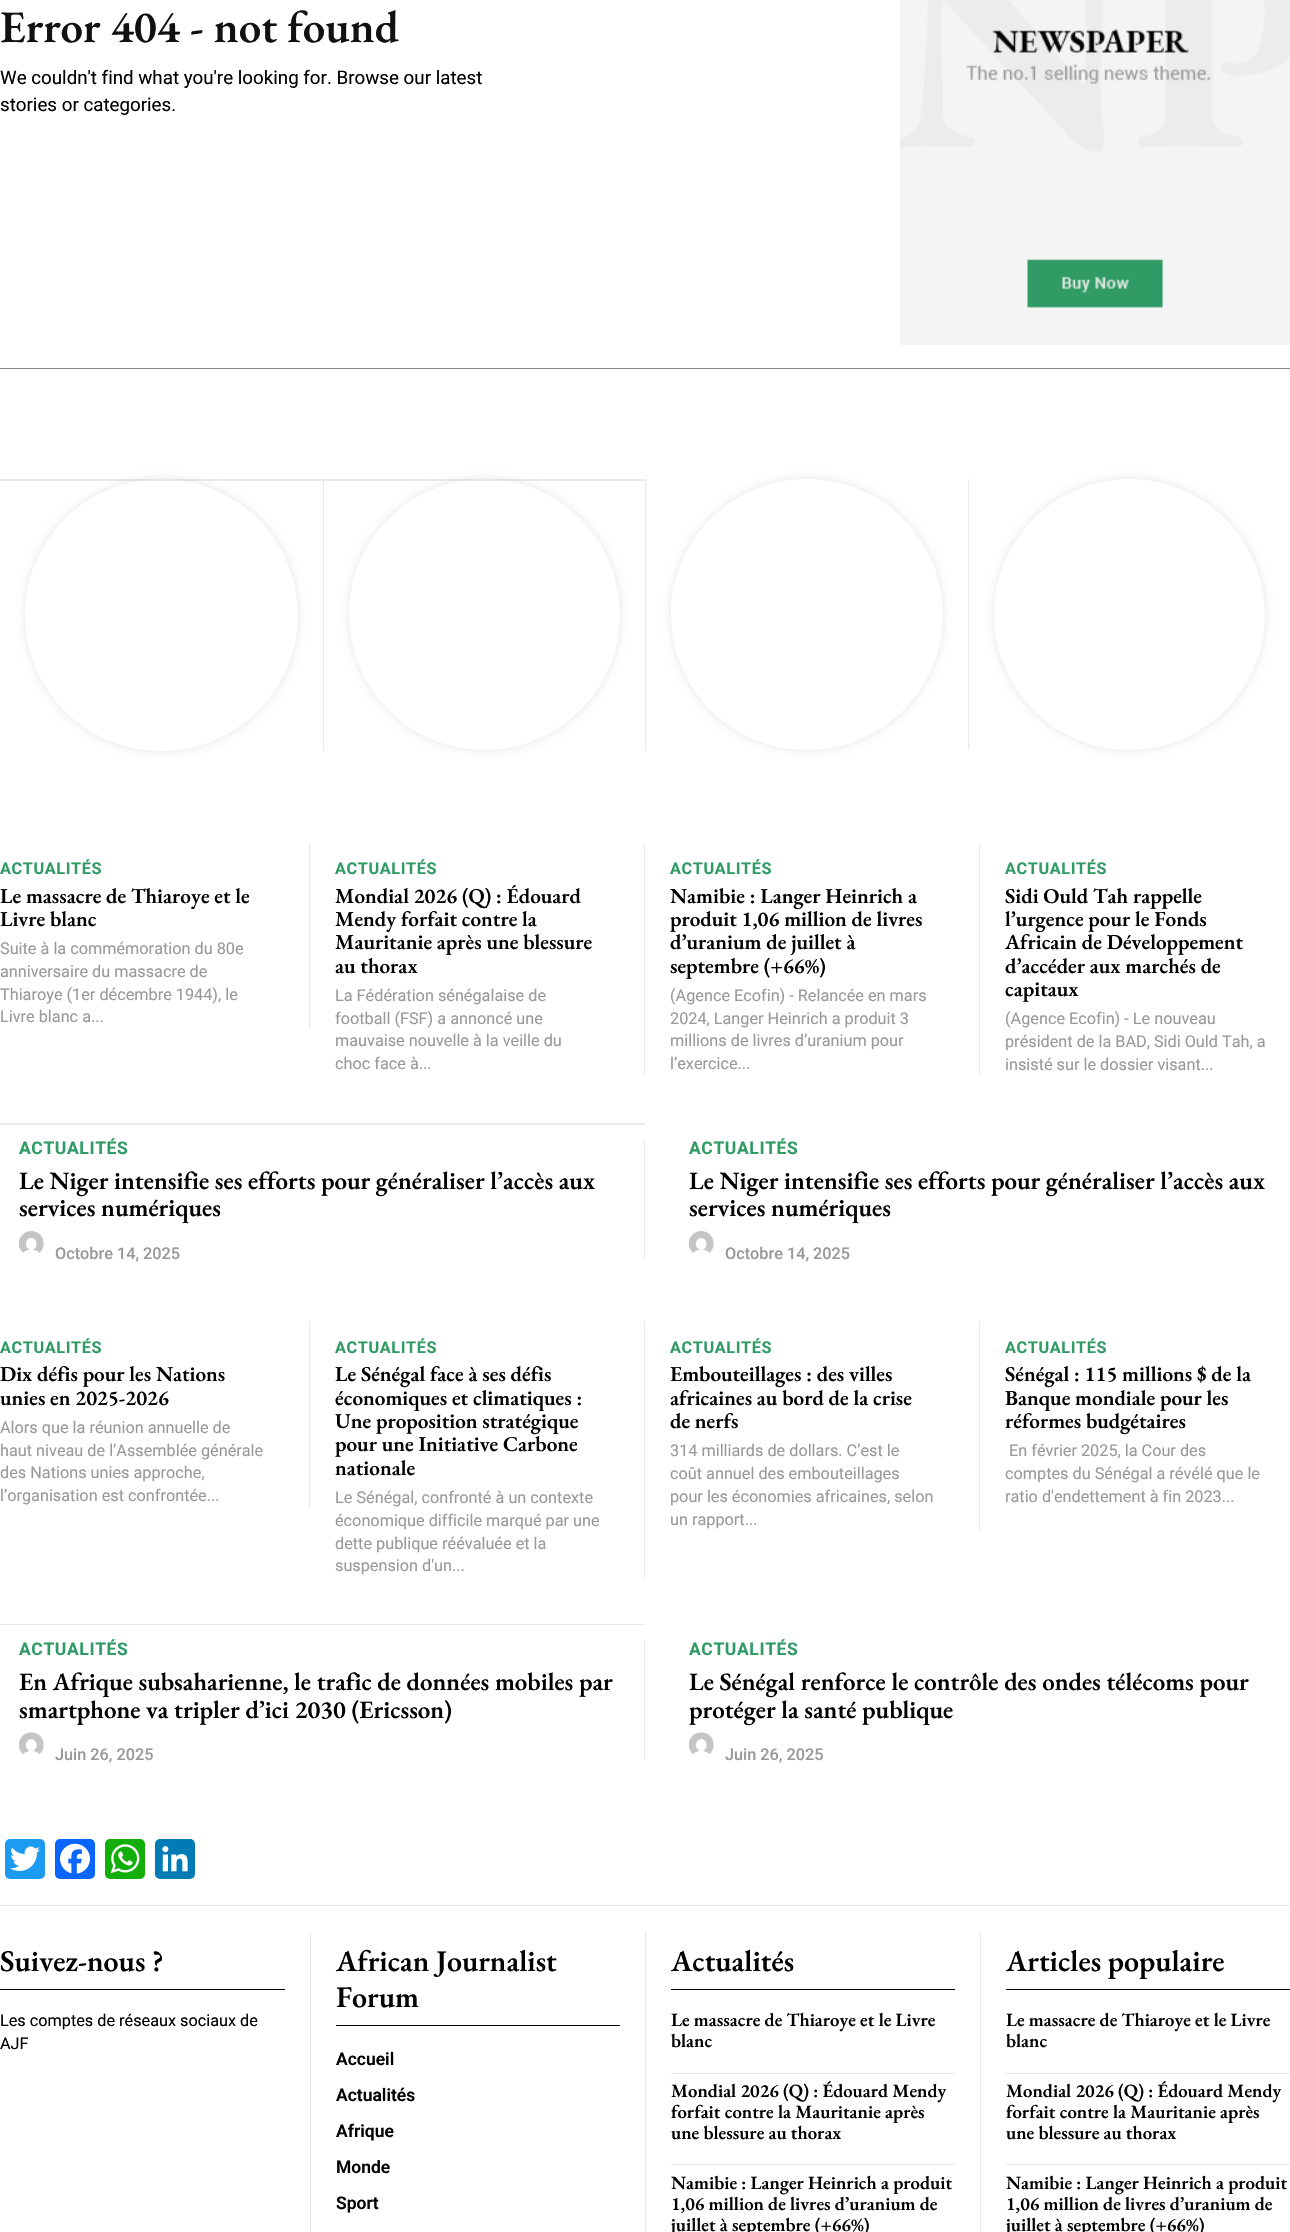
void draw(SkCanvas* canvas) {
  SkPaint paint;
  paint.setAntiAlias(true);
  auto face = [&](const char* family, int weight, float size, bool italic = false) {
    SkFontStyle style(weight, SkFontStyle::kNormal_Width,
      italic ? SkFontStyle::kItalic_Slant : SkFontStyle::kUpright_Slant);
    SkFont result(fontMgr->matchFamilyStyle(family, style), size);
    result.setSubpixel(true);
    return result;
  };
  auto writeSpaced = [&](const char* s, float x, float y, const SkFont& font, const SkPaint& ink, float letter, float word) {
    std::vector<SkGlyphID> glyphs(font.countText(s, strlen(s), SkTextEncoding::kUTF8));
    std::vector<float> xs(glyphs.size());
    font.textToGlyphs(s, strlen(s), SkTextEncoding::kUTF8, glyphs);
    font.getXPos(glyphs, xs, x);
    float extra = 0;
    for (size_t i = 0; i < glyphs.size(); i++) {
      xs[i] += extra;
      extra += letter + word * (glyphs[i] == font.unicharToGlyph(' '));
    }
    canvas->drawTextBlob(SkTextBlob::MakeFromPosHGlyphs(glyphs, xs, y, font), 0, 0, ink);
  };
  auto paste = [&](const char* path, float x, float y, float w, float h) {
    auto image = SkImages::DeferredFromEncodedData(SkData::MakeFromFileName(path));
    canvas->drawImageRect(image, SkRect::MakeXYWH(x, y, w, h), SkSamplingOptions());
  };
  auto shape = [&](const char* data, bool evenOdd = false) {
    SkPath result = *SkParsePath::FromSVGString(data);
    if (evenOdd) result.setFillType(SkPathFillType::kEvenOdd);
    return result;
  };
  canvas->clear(0xffffffff);
  paint.setColor(0xff888888);
  canvas->drawRect(SkRect::MakeXYWH(0, 368, 1290, 1), paint);
  paste("img/1.png", 900, 0, 390, 345);
  paint.setColor(0xffeaeaea);
  canvas->drawRect(SkRect::MakeXYWH(0, 479, 645, 2), paint);
  canvas->save();
  canvas->clipPath(shape("M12 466H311V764H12ZM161 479H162C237 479 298 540 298 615C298 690 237 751 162 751H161C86 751 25 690 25 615C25 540 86 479 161 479Z", true), true);
  paint.setColor(0x1a000000);
  paint.setMaskFilter(SkMaskFilter::MakeBlur(kNormal_SkBlurStyle, 4));
  canvas->drawRoundRect(SkRect::MakeXYWH(25, 479, 273, 272), 136, 136, paint);
  paint.setMaskFilter(nullptr);
  canvas->restore();
  paint.setColor(0xffeaeaea);
  canvas->drawRect(SkRect::MakeXYWH(323, 479, 1, 271), paint);
  canvas->save();
  canvas->clipPath(shape("M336 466H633V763H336ZM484.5 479C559.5 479 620 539.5 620 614.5C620 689.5 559.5 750 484.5 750C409.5 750 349 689.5 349 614.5C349 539.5 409.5 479 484.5 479Z", true), true);
  paint.setColor(0x1a000000);
  paint.setMaskFilter(SkMaskFilter::MakeBlur(kNormal_SkBlurStyle, 4));
  canvas->drawRoundRect(SkRect::MakeXYWH(349, 479, 271, 271), 135.5f, 135.5f, paint);
  paint.setMaskFilter(nullptr);
  canvas->restore();
  paint.setColor(0xffeaeaea);
  canvas->drawRect(SkRect::MakeXYWH(645, 479, 1, 271), paint);
  canvas->save();
  canvas->clipPath(shape("M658 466H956V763H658ZM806.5 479H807.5C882.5 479 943 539.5 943 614.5C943 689.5 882.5 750 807.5 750H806.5C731.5 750 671 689.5 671 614.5C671 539.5 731.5 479 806.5 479Z", true), true);
  paint.setColor(0x1a000000);
  paint.setMaskFilter(SkMaskFilter::MakeBlur(kNormal_SkBlurStyle, 4));
  canvas->drawRoundRect(SkRect::MakeXYWH(671, 479, 272, 271), 135.5f, 135.5f, paint);
  paint.setMaskFilter(nullptr);
  canvas->restore();
  paint.setColor(0xffeaeaea);
  canvas->drawRect(SkRect::MakeXYWH(968, 479, 1, 271), paint);
  canvas->save();
  canvas->clipPath(shape("M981 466H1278V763H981ZM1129.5 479C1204.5 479 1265 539.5 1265 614.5C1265 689.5 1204.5 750 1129.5 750C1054.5 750 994 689.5 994 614.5C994 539.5 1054.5 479 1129.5 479Z", true), true);
  paint.setColor(0x1a000000);
  paint.setMaskFilter(SkMaskFilter::MakeBlur(kNormal_SkBlurStyle, 4));
  canvas->drawRoundRect(SkRect::MakeXYWH(994, 479, 271, 271), 135.5f, 135.5f, paint);
  paint.setMaskFilter(nullptr);
  canvas->restore();
  {
    const struct { float x, y, w, h; SkColor color; } items[] = {
      {309, 843, 1, 186, 0xffeaeaea},
      {644, 843, 1, 233, 0xffeaeaea},
      {979, 843, 1, 233, 0xffeaeaea},
      {0, 1123, 645, 2, 0xffeaeaea},
      {644, 1139, 1, 120, 0xffeaeaea},
    };
    for (auto [x, y, w, h, color] : items) {
      paint.setColor(color);
      canvas->drawRect(SkRect::MakeXYWH(x, y, w, h), paint);
    }
  }
  paste("img/2.png", 19, 1231, 25, 22);
  paste("img/2.png", 689, 1231, 25, 22);
  {
    const struct { float x, y, w, h; SkColor color; } items[] = {
      {309, 1321, 1, 187, 0xffeaeaea},
      {644, 1321, 1, 257, 0xffeaeaea},
      {979, 1321, 1, 210, 0xffeaeaea},
      {0, 1624, 645, 1, 0xffeaeaea},
      {644, 1640, 1, 120, 0xffeaeaea},
    };
    for (auto [x, y, w, h, color] : items) {
      paint.setColor(color);
      canvas->drawRect(SkRect::MakeXYWH(x, y, w, h), paint);
    }
  }
  paste("img/3.png", 19, 1732, 25, 23);
  paste("img/3.png", 689, 1732, 25, 23);
  paint.setColor(0xff1d9bf0);
  canvas->drawRoundRect(SkRect::MakeXYWH(5, 1839, 40, 40), 5, 5, paint);
  paste("img/4.png", 10, 1846, 30, 25);
  paint.setColor(0xff0866ff);
  canvas->drawRoundRect(SkRect::MakeXYWH(55, 1839, 40, 40), 5, 5, paint);
  paste("img/5.png", 60, 1843, 30, 31);
  paint.setColor(0xff12af0a);
  canvas->drawRoundRect(SkRect::MakeXYWH(105, 1839, 40, 40), 5, 5, paint);
  paste("img/6.png", 110, 1844, 30, 30);
  paint.setColor(0xff007bb5);
  canvas->drawRoundRect(SkRect::MakeXYWH(155, 1839, 40, 40), 5, 5, paint);
  paste("img/7.png", 162, 1846, 26, 26);
  {
    const struct { float x, y, w, h; SkColor color; } items[] = {
      {0, 1905, 1290, 1, 0xffeaeaea},
      {0, 1989, 285, 1, 0xff000000},
      {310, 1931, 1, 301, 0xffeaeaea},
      {336, 2025, 284, 1, 0xff000000},
      {645, 1931, 1, 301, 0xffeaeaea},
      {671, 1989, 284, 1, 0xff000000},
      {671, 2073, 284, 1, 0xffeaeaea},
      {671, 2164, 284, 1, 0xffeaeaea},
      {980, 1931, 1, 301, 0xffeaeaea},
      {1006, 1989, 284, 1, 0xff000000},
      {1006, 2073, 284, 1, 0xffeaeaea},
      {1006, 2164, 284, 1, 0xffeaeaea},
    };
    for (auto [x, y, w, h, color] : items) {
      paint.setColor(color);
      canvas->drawRect(SkRect::MakeXYWH(x, y, w, h), paint);
    }
  }
  auto f0 = face("EB Garamond", 600, 45);
  paint.setColor(0xff111111);
  canvas->drawString("Error 404 - not found", 0, 42, f0, paint);
  auto f1 = face("Roboto", 400, 18.75f);
  paint.setColor(0xff000000);
  canvas->drawString("We couldn't find what you're looking for. Browse our latest", 0, 84, f1, paint);
  canvas->drawString("stories or categories.", 0, 111, f1, paint);
  auto f2 = face("Roboto", 700, 16.25f);
  paint.setColor(0xff309b65);
  writeSpaced("ACTUALITÉS", 0, 874, f2, paint, 0.6f, 0);
  auto f3 = face("EB Garamond", 600, 21.25f);
  paint.setColor(0xff000000);
  canvas->drawString("Le massacre de Thiaroye et le", 0, 903, f3, paint);
  canvas->drawString("Livre blanc", 0, 926, f3, paint);
  auto f4 = face("Roboto", 400, 16.25f);
  paint.setColor(0xff999999);
  {
    const struct { const char* s; float x, y; } items[] = {
      {"Suite à la commémoration du 80e", 0, 954},
      {"anniversaire du massacre de", 0, 977},
      {"Thiaroye (1er décembre 1944), le", 0, 1000},
      {"Livre blanc a...", 0, 1022},
    };
    for (auto [s, x, y] : items) {
      canvas->drawString(s, x, y, f4, paint);
    }
  }
  paint.setColor(0xff309b65);
  writeSpaced("ACTUALITÉS", 335, 874, f2, paint, 0.6f, 0);
  paint.setColor(0xff000000);
  {
    const struct { const char* s; float x, y; } items[] = {
      {"Mondial 2026 (Q) : Édouard", 335, 903},
      {"Mendy forfait contre la", 335, 926},
      {"Mauritanie après une blessure", 335, 949},
      {"au thorax", 335, 973},
    };
    for (auto [s, x, y] : items) {
      canvas->drawString(s, x, y, f3, paint);
    }
  }
  paint.setColor(0xff999999);
  {
    const struct { const char* s; float x, y; } items[] = {
      {"La Fédération sénégalaise de", 335, 1001},
      {"football (FSF) a annoncé une", 335, 1024},
      {"mauvaise nouvelle à la veille du", 335, 1046},
      {"choc face à...", 335, 1069},
    };
    for (auto [s, x, y] : items) {
      canvas->drawString(s, x, y, f4, paint);
    }
  }
  paint.setColor(0xff309b65);
  writeSpaced("ACTUALITÉS", 670, 874, f2, paint, 0.6f, 0);
  paint.setColor(0xff000000);
  {
    const struct { const char* s; float x, y; } items[] = {
      {"Namibie : Langer Heinrich a", 670, 903},
      {"produit 1,06 million de livres", 670, 926},
      {"d’uranium de juillet à", 670, 949},
      {"septembre (+66%)", 670, 973},
    };
    for (auto [s, x, y] : items) {
      canvas->drawString(s, x, y, f3, paint);
    }
  }
  paint.setColor(0xff999999);
  {
    const struct { const char* s; float x, y; } items[] = {
      {"(Agence Ecofin) - Relancée en mars", 670, 1001},
      {"2024, Langer Heinrich a produit 3", 670, 1024},
      {"millions de livres d’uranium pour", 670, 1046},
      {"l’exercice...", 670, 1069},
    };
    for (auto [s, x, y] : items) {
      canvas->drawString(s, x, y, f4, paint);
    }
  }
  paint.setColor(0xff309b65);
  writeSpaced("ACTUALITÉS", 1005, 874, f2, paint, 0.6f, 0);
  paint.setColor(0xff000000);
  {
    const struct { const char* s; float x, y; } items[] = {
      {"Sidi Ould Tah rappelle", 1005, 903},
      {"l’urgence pour le Fonds", 1005, 926},
      {"Africain de Développement", 1005, 949},
      {"d’accéder aux marchés de", 1005, 973},
      {"capitaux", 1005, 996},
    };
    for (auto [s, x, y] : items) {
      canvas->drawString(s, x, y, f3, paint);
    }
  }
  paint.setColor(0xff999999);
  {
    const struct { const char* s; float x, y; } items[] = {
      {"(Agence Ecofin) - Le nouveau", 1005, 1024},
      {"président de la BAD, Sidi Ould Tah, a", 1005, 1047},
      {"insisté sur le dossier visant...", 1005, 1070},
    };
    for (auto [s, x, y] : items) {
      canvas->drawString(s, x, y, f4, paint);
    }
  }
  auto f5 = face("Roboto", 700, 17.5f);
  paint.setColor(0xff309b65);
  writeSpaced("ACTUALITÉS", 19, 1154, f5, paint, 0.6f, 0);
  auto f6 = face("EB Garamond", 600, 25);
  paint.setColor(0xff000000);
  canvas->drawString("Le Niger intensifie ses efforts pour généraliser l’accès aux", 19, 1189, f6, paint);
  canvas->drawString("services numériques", 19, 1216, f6, paint);
  auto f7 = face("Roboto", 500, 16.25f);
  paint.setColor(0xff999999);
  canvas->drawString("Octobre 14, 2025", 55, 1259, f7, paint);
  paint.setColor(0xff309b65);
  writeSpaced("ACTUALITÉS", 689, 1154, f5, paint, 0.6f, 0);
  paint.setColor(0xff000000);
  canvas->drawString("Le Niger intensifie ses efforts pour généraliser l’accès aux", 689, 1189, f6, paint);
  canvas->drawString("services numériques", 689, 1216, f6, paint);
  paint.setColor(0xff999999);
  canvas->drawString("Octobre 14, 2025", 725, 1259, f7, paint);
  paint.setColor(0xff309b65);
  writeSpaced("ACTUALITÉS", 0, 1353, f2, paint, 0.6f, 0);
  paint.setColor(0xff000000);
  canvas->drawString("Dix défis pour les Nations", 0, 1381, f3, paint);
  canvas->drawString("unies en 2025-2026", 0, 1405, f3, paint);
  paint.setColor(0xff999999);
  {
    const struct { const char* s; float x, y; } items[] = {
      {"Alors que la réunion annuelle de", 0, 1433},
      {"haut niveau de l’Assemblée générale", 0, 1456},
      {"des Nations unies approche,", 0, 1478},
      {"l’organisation est confrontée...", 0, 1501},
    };
    for (auto [s, x, y] : items) {
      canvas->drawString(s, x, y, f4, paint);
    }
  }
  paint.setColor(0xff309b65);
  writeSpaced("ACTUALITÉS", 335, 1353, f2, paint, 0.6f, 0);
  paint.setColor(0xff000000);
  {
    const struct { const char* s; float x, y; } items[] = {
      {"Le Sénégal face à ses défis", 335, 1381},
      {"économiques et climatiques :", 335, 1405},
      {"Une proposition stratégique", 335, 1428},
      {"pour une Initiative Carbone", 335, 1451},
      {"nationale", 335, 1475},
    };
    for (auto [s, x, y] : items) {
      canvas->drawString(s, x, y, f3, paint);
    }
  }
  paint.setColor(0xff999999);
  {
    const struct { const char* s; float x, y; } items[] = {
      {"Le Sénégal, confronté à un contexte", 335, 1503},
      {"économique difficile marqué par une", 335, 1526},
      {"dette publique réévaluée et la", 335, 1549},
      {"suspension d'un...", 335, 1571},
    };
    for (auto [s, x, y] : items) {
      canvas->drawString(s, x, y, f4, paint);
    }
  }
  paint.setColor(0xff309b65);
  writeSpaced("ACTUALITÉS", 670, 1353, f2, paint, 0.6f, 0);
  paint.setColor(0xff000000);
  {
    const struct { const char* s; float x, y; } items[] = {
      {"Embouteillages : des villes", 670, 1381},
      {"africaines au bord de la crise", 670, 1405},
      {"de nerfs", 670, 1428},
    };
    for (auto [s, x, y] : items) {
      canvas->drawString(s, x, y, f3, paint);
    }
  }
  paint.setColor(0xff999999);
  {
    const struct { const char* s; float x, y; } items[] = {
      {"314 milliards de dollars. C’est le", 670, 1456},
      {"coût annuel des embouteillages", 670, 1479},
      {"pour les économies africaines, selon", 670, 1502},
      {"un rapport...", 670, 1525},
    };
    for (auto [s, x, y] : items) {
      canvas->drawString(s, x, y, f4, paint);
    }
  }
  paint.setColor(0xff309b65);
  writeSpaced("ACTUALITÉS", 1005, 1353, f2, paint, 0.6f, 0);
  paint.setColor(0xff000000);
  {
    const struct { const char* s; float x, y; } items[] = {
      {"Sénégal : 115 millions $ de la", 1005, 1381},
      {"Banque mondiale pour les", 1005, 1405},
      {"réformes budgétaires", 1005, 1428},
    };
    for (auto [s, x, y] : items) {
      canvas->drawString(s, x, y, f3, paint);
    }
  }
  paint.setColor(0xff999999);
  {
    const struct { const char* s; float x, y; } items[] = {
      {"En février 2025, la Cour des", 1009, 1456},
      {"comptes du Sénégal a révélé que le", 1005, 1479},
      {"ratio d'endettement à fin 2023...", 1005, 1502},
    };
    for (auto [s, x, y] : items) {
      canvas->drawString(s, x, y, f4, paint);
    }
  }
  paint.setColor(0xff309b65);
  writeSpaced("ACTUALITÉS", 19, 1655, f5, paint, 0.6f, 0);
  paint.setColor(0xff000000);
  canvas->drawString("En Afrique subsaharienne, le trafic de données mobiles par", 19, 1690, f6, paint);
  canvas->drawString("smartphone va tripler d’ici 2030 (Ericsson)", 19, 1718, f6, paint);
  paint.setColor(0xff999999);
  canvas->drawString("Juin 26, 2025", 55, 1760, f7, paint);
  paint.setColor(0xff309b65);
  writeSpaced("ACTUALITÉS", 689, 1655, f5, paint, 0.6f, 0);
  paint.setColor(0xff000000);
  canvas->drawString("Le Sénégal renforce le contrôle des ondes télécoms pour", 689, 1690, f6, paint);
  canvas->drawString("protéger la santé publique", 689, 1718, f6, paint);
  paint.setColor(0xff999999);
  canvas->drawString("Juin 26, 2025", 725, 1760, f7, paint);
  auto f8 = face("EB Garamond", 600, 30);
  paint.setColor(0xff000000);
  canvas->drawString("Suivez-nous ?", 0, 1971, f8, paint);
  canvas->drawString("Les comptes de réseaux sociaux de", 0, 2026, f4, paint);
  canvas->drawString("AJF", 0, 2049, f4, paint);
  canvas->drawString("African Journalist", 336, 1971, f8, paint);
  canvas->drawString("Forum", 336, 2007, f8, paint);
  auto f9 = face("Roboto", 600, 17.5f);
  {
    const struct { const char* s; float x, y; } items[] = {
      {"Accueil", 336, 2065},
      {"Actualités", 336, 2101},
      {"Afrique", 336, 2137},
      {"Monde", 336, 2173},
      {"Sport", 336, 2209},
    };
    for (auto [s, x, y] : items) {
      canvas->drawString(s, x, y, f9, paint);
    }
  }
  canvas->drawString("Actualités", 671, 1971, f8, paint);
  auto f10 = face("EB Garamond", 600, 18.75f);
  {
    const struct { const char* s; float x, y; } items[] = {
      {"Le massacre de Thiaroye et le Livre", 671, 2026},
      {"blanc", 671, 2047},
      {"Mondial 2026 (Q) : Édouard Mendy", 671, 2097},
      {"forfait contre la Mauritanie après", 671, 2118},
      {"une blessure au thorax", 671, 2139},
      {"Namibie : Langer Heinrich a produit", 671, 2189},
      {"1,06 million de livres d’uranium de", 671, 2210},
      {"juillet à septembre (+66%)", 671, 2231},
    };
    for (auto [s, x, y] : items) {
      canvas->drawString(s, x, y, f10, paint);
    }
  }
  canvas->drawString("Articles populaire", 1006, 1971, f8, paint);
  {
    const struct { const char* s; float x, y; } items[] = {
      {"Le massacre de Thiaroye et le Livre", 1006, 2026},
      {"blanc", 1006, 2047},
      {"Mondial 2026 (Q) : Édouard Mendy", 1006, 2097},
      {"forfait contre la Mauritanie après", 1006, 2118},
      {"une blessure au thorax", 1006, 2139},
      {"Namibie : Langer Heinrich a produit", 1006, 2189},
      {"1,06 million de livres d’uranium de", 1006, 2210},
      {"juillet à septembre (+66%)", 1006, 2231},
    };
    for (auto [s, x, y] : items) {
      canvas->drawString(s, x, y, f10, paint);
    }
  }
}
